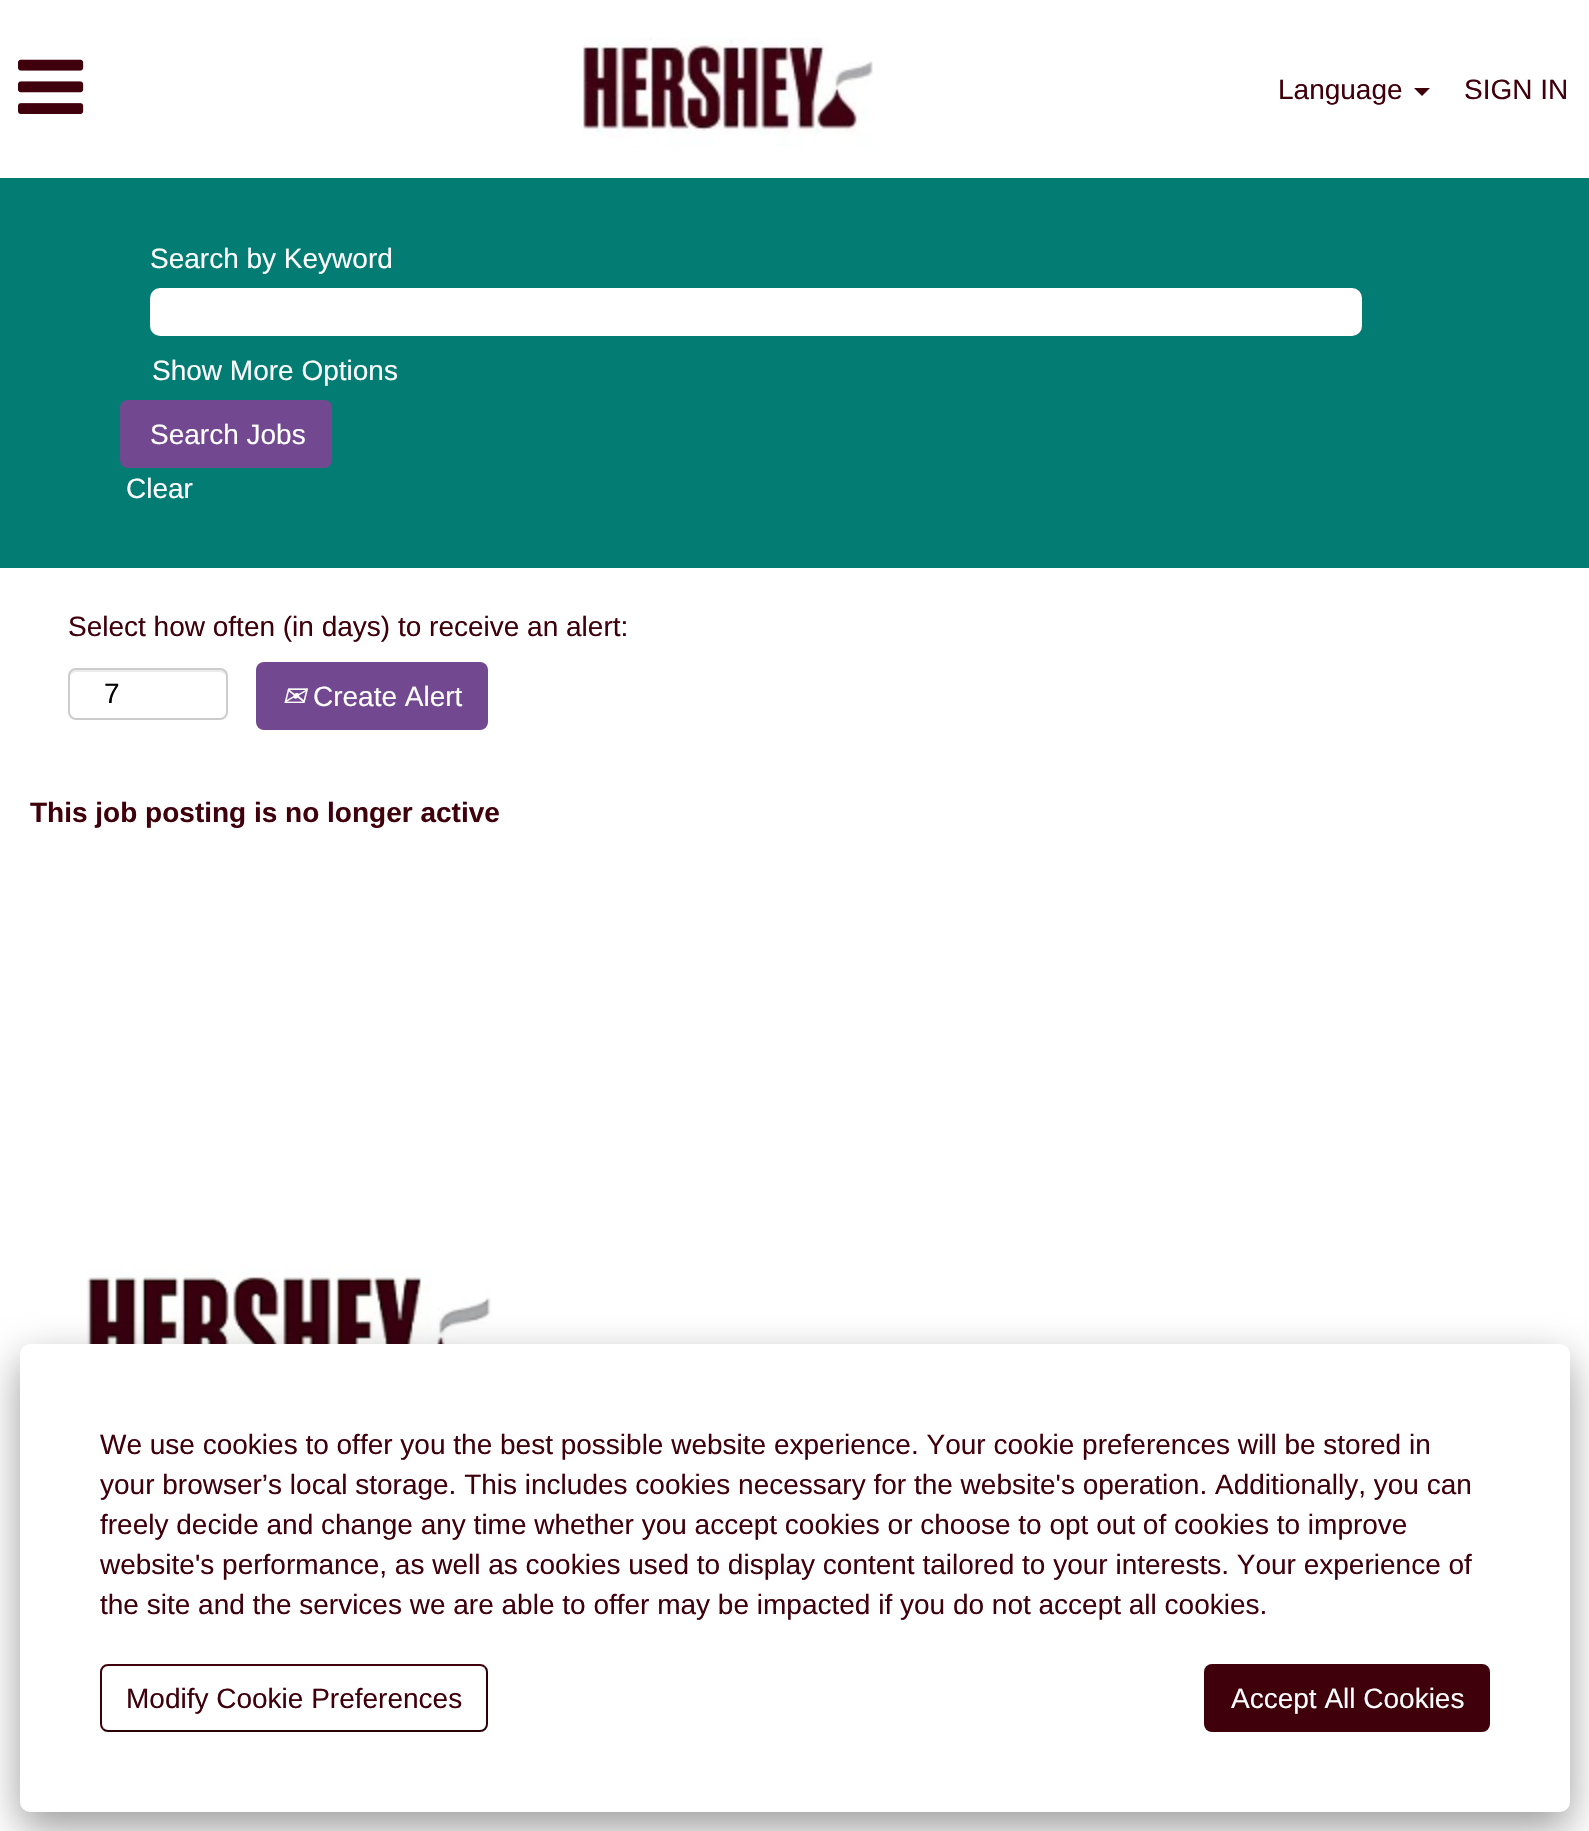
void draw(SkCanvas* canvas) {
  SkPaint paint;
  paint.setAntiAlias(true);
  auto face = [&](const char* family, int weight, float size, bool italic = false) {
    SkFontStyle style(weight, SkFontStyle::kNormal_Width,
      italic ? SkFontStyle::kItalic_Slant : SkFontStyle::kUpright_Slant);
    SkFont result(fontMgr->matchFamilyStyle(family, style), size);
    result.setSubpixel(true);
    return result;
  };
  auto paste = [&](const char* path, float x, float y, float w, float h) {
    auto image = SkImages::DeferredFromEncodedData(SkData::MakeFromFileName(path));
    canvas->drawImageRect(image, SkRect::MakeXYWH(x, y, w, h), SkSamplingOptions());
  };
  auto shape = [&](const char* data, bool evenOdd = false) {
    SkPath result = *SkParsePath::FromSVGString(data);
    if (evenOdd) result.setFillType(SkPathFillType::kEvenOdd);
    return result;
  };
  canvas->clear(0xffffffff);
  paste("img/1.png", 18, 59, 66, 55);
  paste("img/2.png", 583, 37, 290, 111);
  paint.setColor(0xff3f000b);
  canvas->drawPath(shape("M1414 88H1430L1422 96Z"), paint);
  paint.setColor(0xff037c73);
  canvas->drawRect(SkRect::MakeXYWH(0, 178, 1589, 390), paint);
  paint.setColor(0xffffffff);
  canvas->drawRoundRect(SkRect::MakeXYWH(150, 288, 1212, 48), 10, 10, paint);
  paint.setColor(0xff724990);
  canvas->drawRoundRect(SkRect::MakeXYWH(120, 400, 212, 68), 8, 8, paint);
  paint.setColor(0xffececec);
  canvas->drawPath(shape("M76 672H220C223 672 226 675 226 678V676C226 673 223 670 220 670H76C73 670 70 673 70 676V678C70 675 73 672 76 672Z"), paint);
  paint.setStroke(true);
  paint.setStrokeWidth(2);
  paint.setColor(0xffcccccc);
  canvas->drawRoundRect(SkRect::MakeXYWH(69, 669, 158, 50), 7, 7, paint);
  paint.setStroke(false);
  paint.setColor(0xff724990);
  canvas->drawRoundRect(SkRect::MakeXYWH(256, 662, 232, 68), 8, 8, paint);
  paste("img/3.png", 86, 1268, 405, 76);
  paint.setColor(0x63000000);
  paint.setMaskFilter(SkMaskFilter::MakeBlur(kNormal_SkBlurStyle, 20));
  canvas->drawRoundRect(SkRect::MakeXYWH(20, 1360, 1550, 468), 10, 10, paint);
  paint.setMaskFilter(nullptr);
  paint.setColor(0xffffffff);
  canvas->drawRoundRect(SkRect::MakeXYWH(20, 1344, 1550, 468), 10, 10, paint);
  paint.setStroke(true);
  paint.setColor(0xff2a0007);
  canvas->drawPath(shape("M485 1667C486.5 1668.5 487 1670 487 1672V1724C487 1726 486.5 1727.5 485 1729C483.5 1730.5 482 1731 480 1731H108C106 1731 104.5 1730.5 103 1729"), paint);
  paint.setColor(0xff3f000b);
  canvas->drawPath(shape("M103 1729C101.5 1727.5 101 1726 101 1724V1672C101 1670 101.5 1668.5 103 1667C104.5 1665.5 106 1665 108 1665H480C482 1665 483.5 1665.5 485 1667"), paint);
  paint.setStroke(false);
  canvas->drawRoundRect(SkRect::MakeXYWH(1204, 1664, 286, 68), 8, 8, paint);
  auto f0 = face("Liberation Sans", 400, 28);
  canvas->drawString("Language", 1278, 99, f0, paint);
  canvas->drawString("SIGN IN", 1464, 99, f0, paint);
  paint.setColor(0xffffffff);
  {
    const struct { const char* s; float x, y; } items[] = {
      {"Search by Keyword", 150, 268},
      {"Show More Options", 152, 380},
      {"Search Jobs", 150, 444},
      {"Clear", 126, 498},
    };
    for (auto [s, x, y] : items) {
      canvas->drawString(s, x, y, f0, paint);
    }
  }
  paint.setColor(0xff3f000b);
  canvas->drawString("Select how often (in days) to receive an alert:", 68, 636, f0, paint);
  paint.setColor(0xff000000);
  canvas->drawString("7", 104, 703, f0, paint);
  auto f1 = face("DejaVu Sans", 400, 28, true);
  paint.setColor(0xffffffff);
  canvas->drawString("✉", 282, 706, f1, paint);
  canvas->drawString("Create Alert", 313, 706, f0, paint);
  auto f2 = face("Liberation Sans", 700, 28);
  paint.setColor(0xff3f000b);
  canvas->drawString("This job posting is no longer active", 30, 822, f2, paint);
  {
    const struct { const char* s; float x, y; } items[] = {
      {"We use cookies to offer you the best possible website experience. Your cookie preferences will be stored in", 100, 1454},
      {"your browser’s local storage. This includes cookies necessary for the website's operation. Additionally, you can", 100, 1494},
      {"freely decide and change any time whether you accept cookies or choose to opt out of cookies to improve", 100, 1534},
      {"website's performance, as well as cookies used to display content tailored to your interests. Your experience of", 100, 1574},
      {"the site and the services we are able to offer may be impacted if you do not accept all cookies.", 100, 1614},
      {"Modify Cookie Preferences", 126, 1708},
    };
    for (auto [s, x, y] : items) {
      canvas->drawString(s, x, y, f0, paint);
    }
  }
  paint.setColor(0xffffffff);
  canvas->drawString("Accept All Cookies", 1231, 1708, f0, paint);
}
